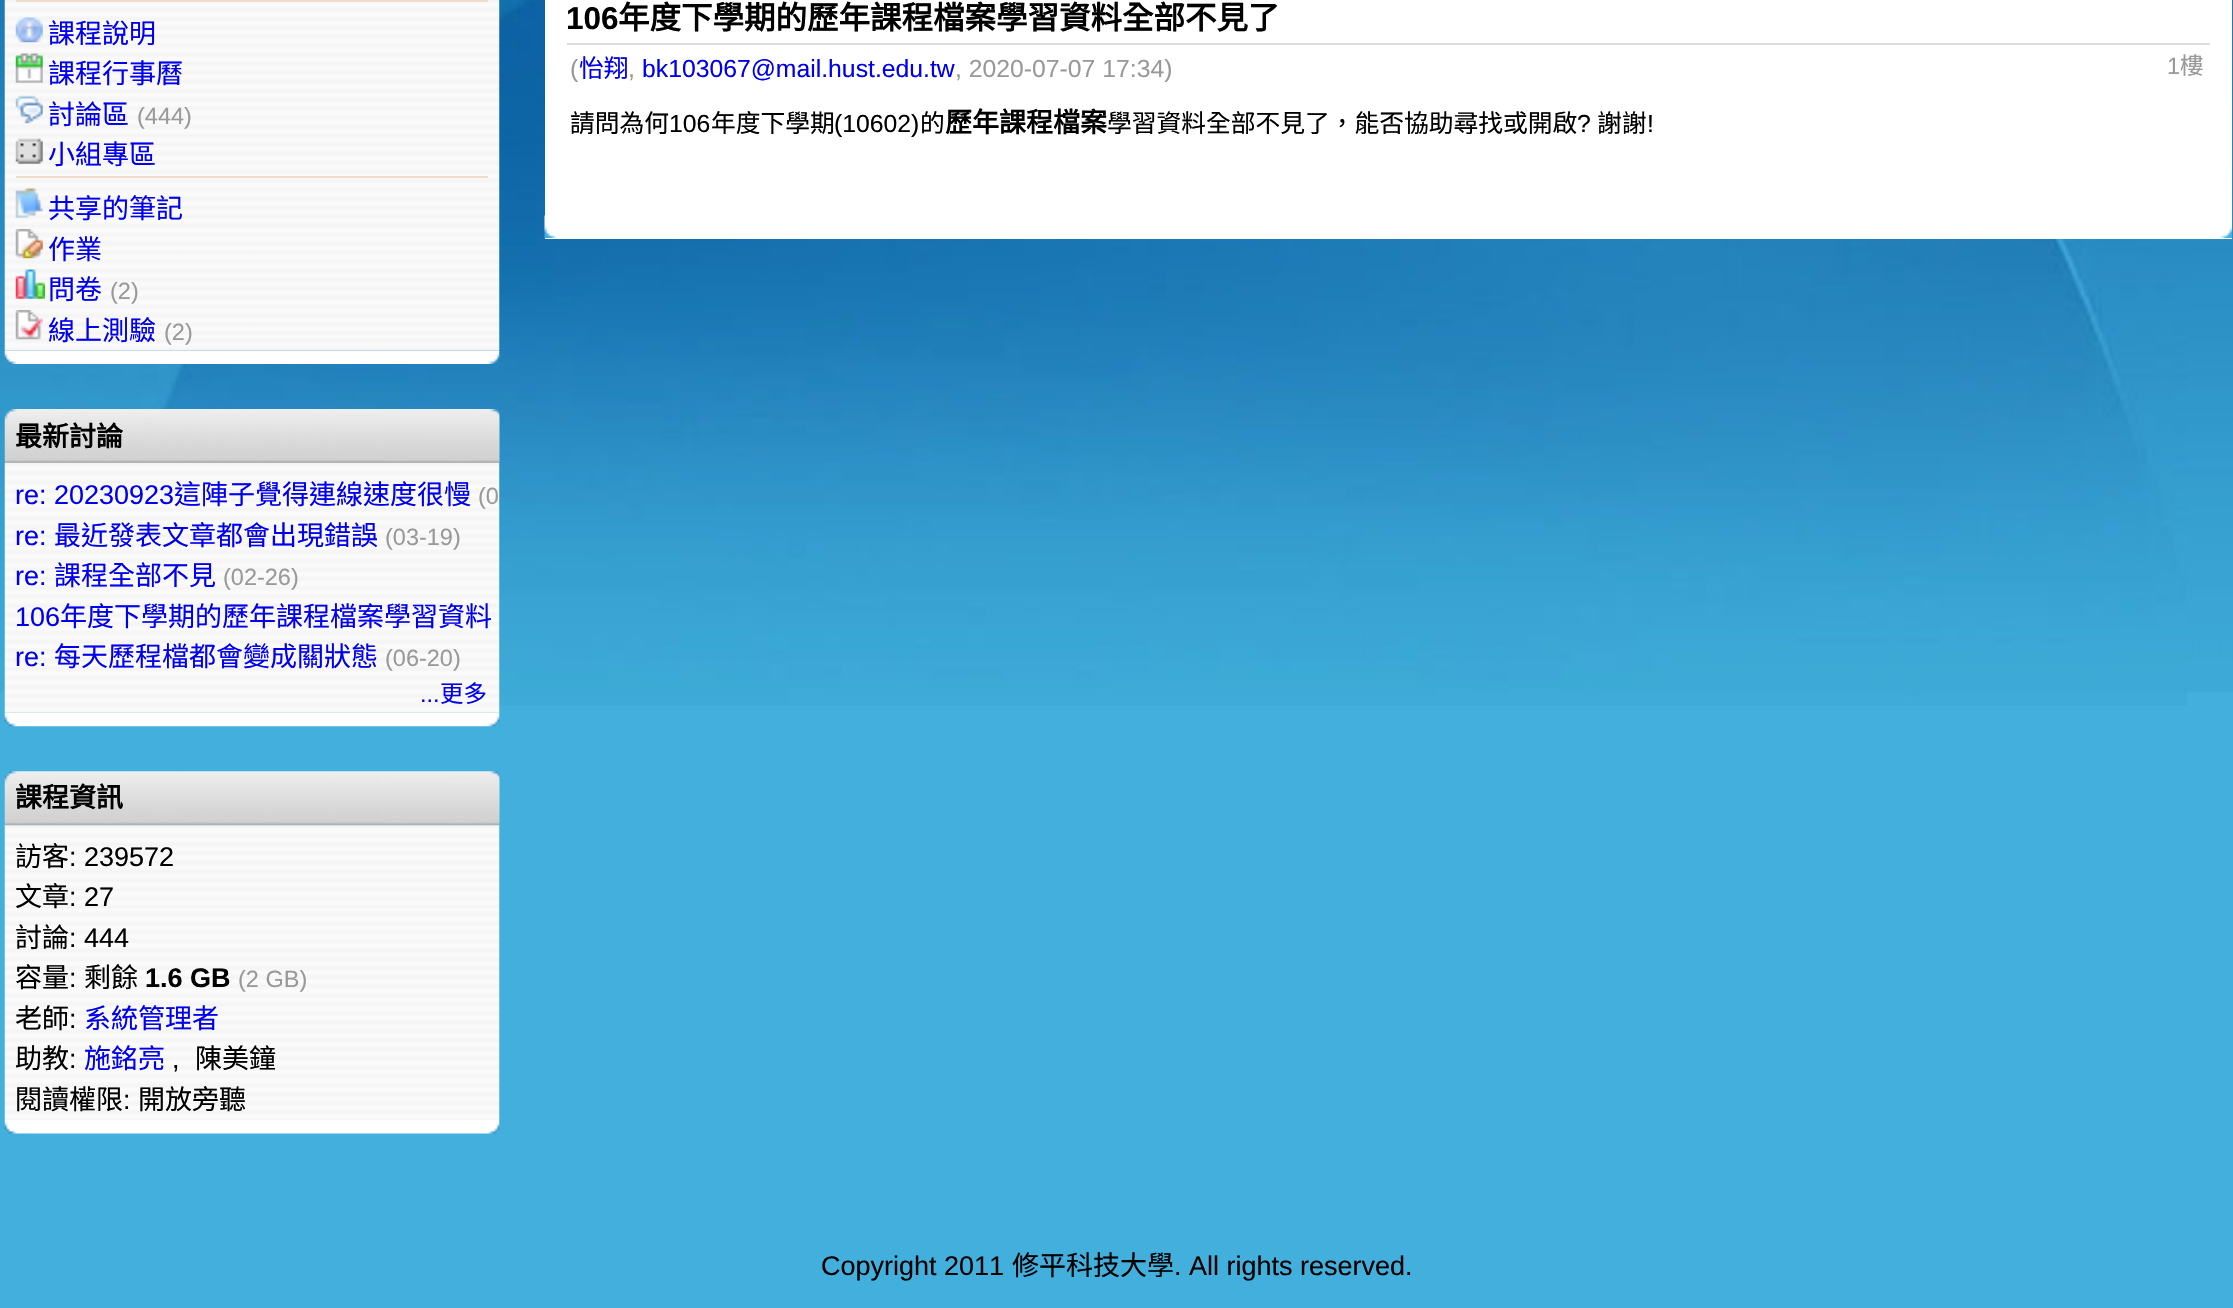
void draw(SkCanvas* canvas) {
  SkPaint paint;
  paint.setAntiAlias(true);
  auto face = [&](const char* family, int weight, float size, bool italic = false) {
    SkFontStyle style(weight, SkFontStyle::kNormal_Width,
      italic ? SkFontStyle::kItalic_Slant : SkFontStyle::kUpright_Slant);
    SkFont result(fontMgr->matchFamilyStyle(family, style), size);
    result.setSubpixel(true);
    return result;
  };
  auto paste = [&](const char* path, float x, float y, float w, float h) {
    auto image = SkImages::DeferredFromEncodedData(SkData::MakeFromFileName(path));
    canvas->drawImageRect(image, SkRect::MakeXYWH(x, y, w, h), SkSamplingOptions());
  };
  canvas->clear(0xff42afdc);
  paste("img/1.png", 0, 0, 2233, 692);
  paste("img/2.png", 50, 0, 2137, 706);
  paste("img/12.png", 4, 350, 496, 14);
  paste("img/3.png", 4, 0, 496, 351);
  paint.setColor(0xffeeddcc);
  canvas->drawRect(SkRect::MakeXYWH(16, 0, 472, 2), paint);
  paste("img/4.png", 15, 17, 28, 26);
  paste("img/5.png", 15, 53, 28, 30);
  paste("img/6.png", 15, 95, 28, 29);
  paste("img/7.png", 15, 138, 28, 26);
  canvas->drawRect(SkRect::MakeXYWH(16, 176, 472, 2), paint);
  paste("img/8.png", 15, 188, 28, 30);
  paste("img/9.png", 15, 229, 28, 30);
  paste("img/10.png", 15, 269, 30, 30);
  paste("img/11.png", 15, 310, 28, 30);
  paste("img/13.png", 4, 409, 496, 54);
  paste("img/15.png", 4, 712, 496, 15);
  paste("img/14.png", 4, 463, 496, 250);
  paste("img/16.png", 4, 771, 496, 55);
  paste("img/17.png", 4, 825, 496, 295);
  paste("img/18.png", 4, 1120, 496, 14);
  paint.setColor(0xffffffff);
  canvas->drawRect(SkRect::MakeXYWH(545, 0, 1687, 239), paint);
  paste("img/19.png", 544, 215, 1688, 23);
  paint.setColor(0xffdddddd);
  canvas->drawRect(SkRect::MakeXYWH(567, 43, 1643, 2), paint);
  auto f0 = face("Noto Sans CJK TC", 400, 27);
  paint.setColor(0xff0000ee);
  {
    const struct { const char* s; float x, y; } items[] = {
      {"課程說明", 48, 43},
      {"課程行事曆", 48, 83},
      {"討論區", 48, 124},
    };
    for (auto [s, x, y] : items) {
      canvas->drawString(s, x, y, f0, paint);
    }
  }
  auto f1 = face("Liberation Sans", 400, 23.5f);
  paint.setColor(0xff999999);
  canvas->drawString("(444)", 137, 124, f1, paint);
  paint.setColor(0xff0000ee);
  {
    const struct { const char* s; float x, y; } items[] = {
      {"小組專區", 48, 164},
      {"共享的筆記", 48, 218},
      {"作業", 48, 259},
      {"問卷", 48, 299},
    };
    for (auto [s, x, y] : items) {
      canvas->drawString(s, x, y, f0, paint);
    }
  }
  paint.setColor(0xff999999);
  canvas->drawString("(2)", 110, 299, f1, paint);
  paint.setColor(0xff0000ee);
  canvas->drawString("線上測驗", 48, 340, f0, paint);
  paint.setColor(0xff999999);
  canvas->drawString("(2)", 164, 340, f1, paint);
  auto f2 = face("Noto Sans CJK TC", 700, 27);
  paint.setColor(0xff000000);
  canvas->drawString("最新討論", 15, 446, f2, paint);
  auto f3 = face("Liberation Sans", 400, 27);
  paint.setColor(0xff0000ee);
  canvas->drawString("re: 20230923", 15, 504, f3, paint);
  canvas->drawString("這陣子覺得連線速度很慢", 174, 504, f0, paint);
  paint.setColor(0xff999999);
  canvas->drawString("(0", 478, 504, f1, paint);
  paint.setColor(0xff0000ee);
  canvas->drawString("re:", 15, 545, f3, paint);
  canvas->drawString("最近發表文章都會出現錯誤", 54, 545, f0, paint);
  paint.setColor(0xff999999);
  canvas->drawString("(03-19)", 385, 545, f1, paint);
  paint.setColor(0xff0000ee);
  canvas->drawString("re:", 15, 585, f3, paint);
  canvas->drawString("課程全部不見", 54, 585, f0, paint);
  paint.setColor(0xff999999);
  canvas->drawString("(02-26)", 223, 585, f1, paint);
  paint.setColor(0xff0000ee);
  canvas->drawString("106", 15, 626, f3, paint);
  canvas->drawString("年度下學期的歷年課程檔案學習資料", 60, 626, f0, paint);
  canvas->drawString("re:", 15, 666, f3, paint);
  canvas->drawString("每天歷程檔都會變成關狀態", 54, 666, f0, paint);
  paint.setColor(0xff999999);
  canvas->drawString("(06-20)", 385, 666, f1, paint);
  paint.setColor(0xff0000ee);
  canvas->drawString("...", 420, 702, f1, paint);
  auto f4 = face("Noto Sans CJK TC", 400, 23.5f);
  canvas->drawString("更多", 440, 702, f4, paint);
  paint.setColor(0xff000000);
  canvas->drawString("課程資訊", 15, 807, f2, paint);
  canvas->drawString("訪客", 15, 866, f0, paint);
  canvas->drawString(": 239572", 69, 866, f3, paint);
  canvas->drawString("文章", 15, 906, f0, paint);
  canvas->drawString(": 27", 69, 906, f3, paint);
  canvas->drawString("討論", 15, 947, f0, paint);
  canvas->drawString(": 444", 69, 947, f3, paint);
  canvas->drawString("容量", 15, 987, f0, paint);
  canvas->drawString(":", 69, 987, f3, paint);
  canvas->drawString("剩餘", 84, 987, f0, paint);
  auto f5 = face("Liberation Sans", 700, 27);
  canvas->drawString("1.6 GB", 145, 987, f5, paint);
  paint.setColor(0xff999999);
  canvas->drawString("(2 GB)", 238, 987, f1, paint);
  paint.setColor(0xff000000);
  canvas->drawString("老師", 15, 1028, f0, paint);
  canvas->drawString(":", 69, 1028, f3, paint);
  paint.setColor(0xff0000ee);
  canvas->drawString("系統管理者", 84, 1028, f0, paint);
  paint.setColor(0xff000000);
  canvas->drawString("助教", 15, 1068, f0, paint);
  canvas->drawString(":", 69, 1068, f3, paint);
  paint.setColor(0xff0000ee);
  canvas->drawString("施銘亮", 84, 1068, f0, paint);
  paint.setColor(0xff000000);
  canvas->drawString(",", 172, 1068, f3, paint);
  canvas->drawString("陳美鐘", 195, 1068, f0, paint);
  canvas->drawString("閱讀權限", 15, 1109, f0, paint);
  canvas->drawString(":", 123, 1109, f3, paint);
  canvas->drawString("開放旁聽", 138, 1109, f0, paint);
  auto f6 = face("Liberation Sans", 700, 31.5f);
  canvas->drawString("106", 566, 29, f6, paint);
  auto f7 = face("Noto Sans CJK TC", 700, 31.5f);
  canvas->drawString("年度下學期的歷年課程檔案學習資料全部不見了", 618, 29, f7, paint);
  auto f8 = face("Liberation Sans", 400, 24.75f);
  paint.setColor(0xff999999);
  canvas->drawString("(", 570, 77, f8, paint);
  auto f9 = face("Noto Sans CJK TC", 400, 24.75f);
  paint.setColor(0xff0000ee);
  canvas->drawString("怡翔", 579, 77, f9, paint);
  paint.setColor(0xff999999);
  canvas->drawString(",", 628, 77, f8, paint);
  paint.setColor(0xff0000ee);
  canvas->drawString("bk103067@mail.hust.edu.tw", 642, 77, f8, paint);
  paint.setColor(0xff999999);
  canvas->drawString(", 2020-07-07 17:34)", 955, 77, f8, paint);
  canvas->drawString("1", 2167, 74, f1, paint);
  canvas->drawString("樓", 2180, 74, f4, paint);
  paint.setColor(0xff000000);
  canvas->drawString("請問為何", 570, 132, f9, paint);
  canvas->drawString("106", 669, 132, f8, paint);
  canvas->drawString("年度下學期", 711, 132, f9, paint);
  canvas->drawString("(10602)", 834, 132, f8, paint);
  canvas->drawString("的", 920, 132, f9, paint);
  canvas->drawString("歷年課程檔案", 945, 132, f2, paint);
  canvas->drawString("學習資料全部不見了，能否協助尋找或開啟", 1107, 132, f9, paint);
  canvas->drawString("?", 1577, 132, f8, paint);
  canvas->drawString("謝謝", 1597, 132, f9, paint);
  canvas->drawString("!", 1647, 132, f8, paint);
  canvas->drawString("Copyright 2011", 821, 1275, f3, paint);
  canvas->drawString("修平科技大學", 1012, 1275, f0, paint);
  canvas->drawString(". All rights reserved.", 1174, 1275, f3, paint);
}
